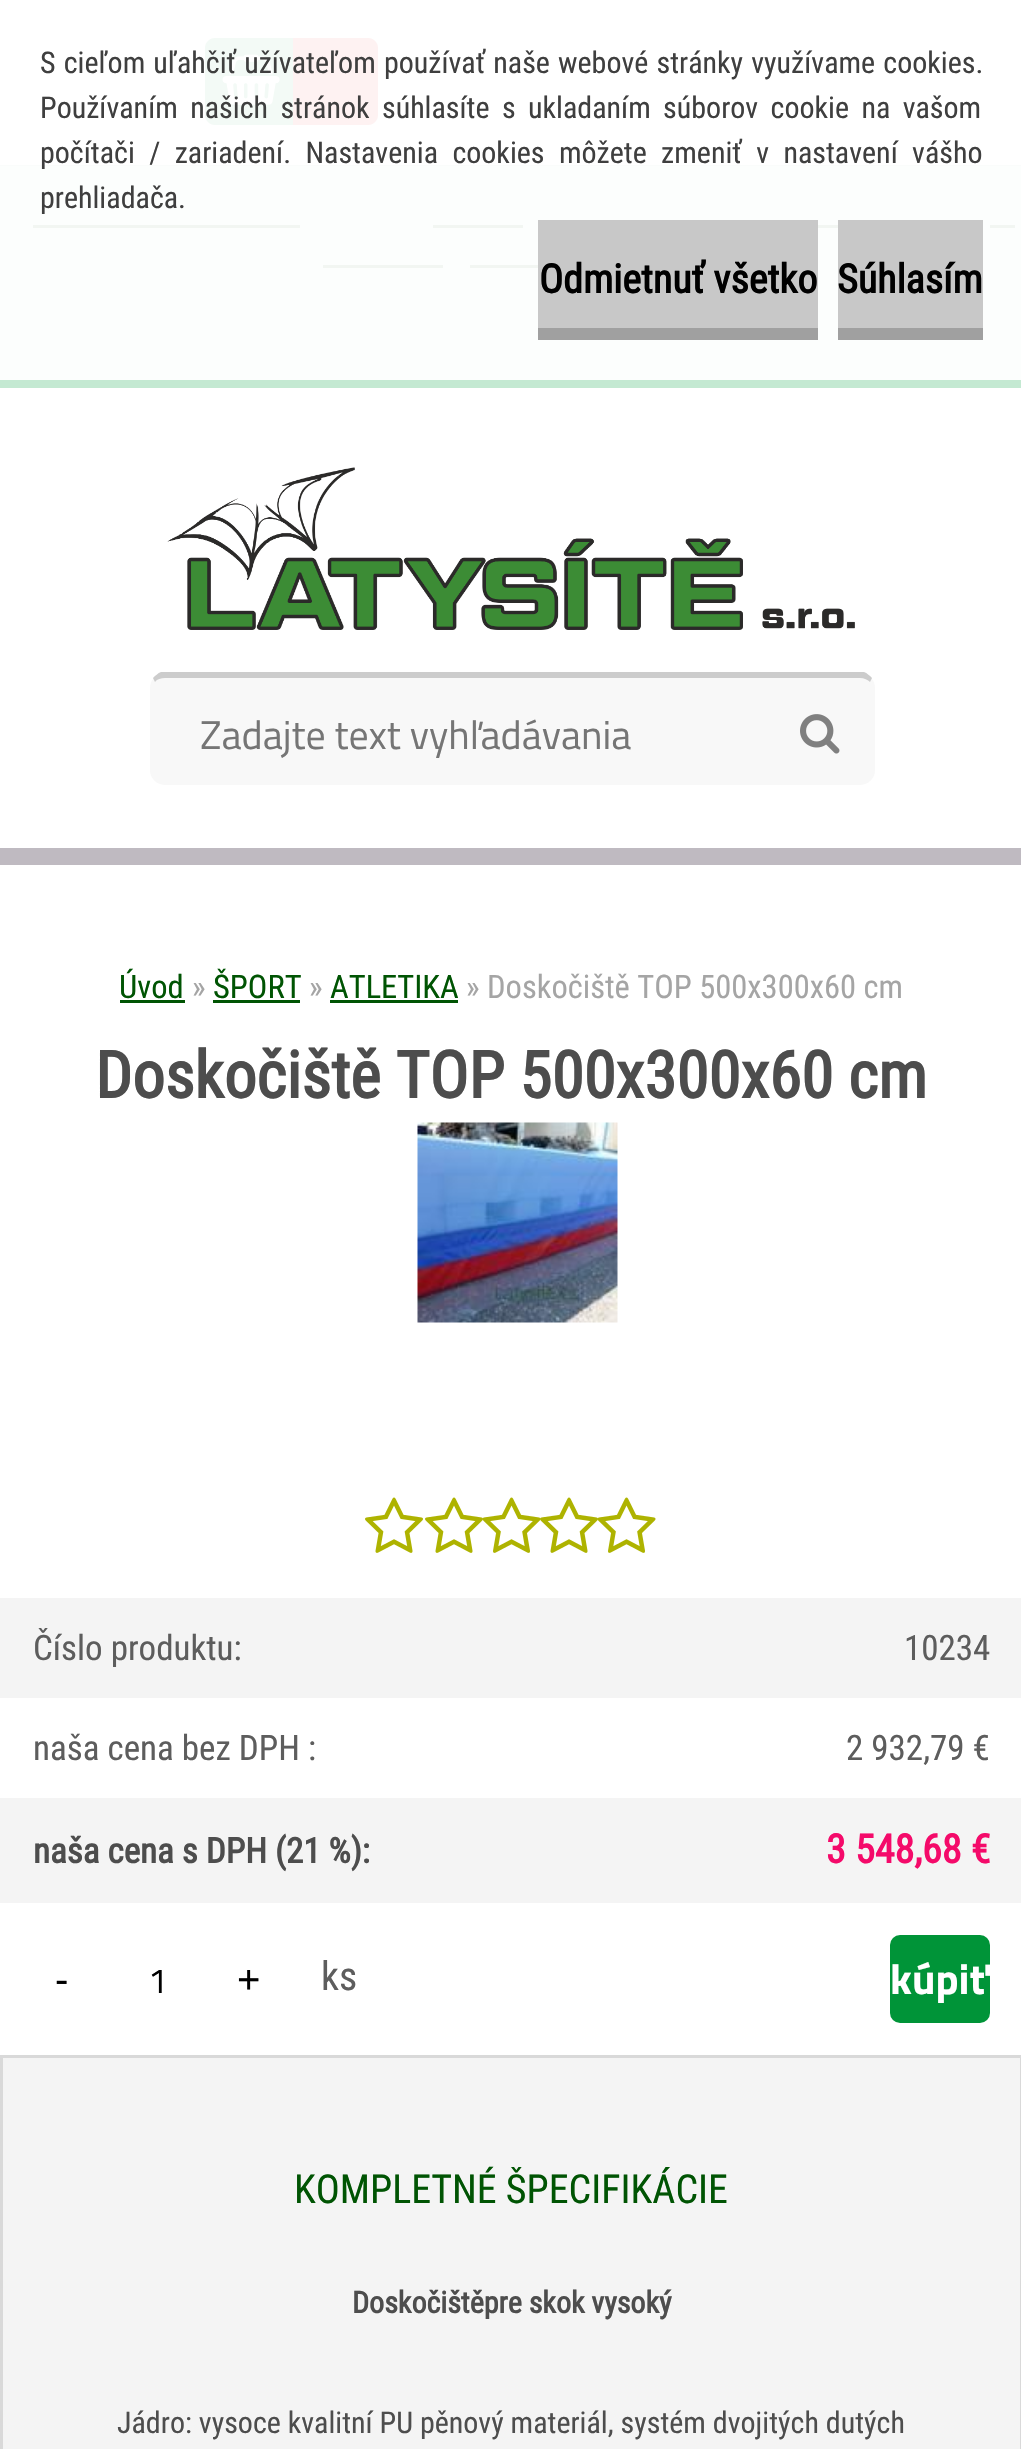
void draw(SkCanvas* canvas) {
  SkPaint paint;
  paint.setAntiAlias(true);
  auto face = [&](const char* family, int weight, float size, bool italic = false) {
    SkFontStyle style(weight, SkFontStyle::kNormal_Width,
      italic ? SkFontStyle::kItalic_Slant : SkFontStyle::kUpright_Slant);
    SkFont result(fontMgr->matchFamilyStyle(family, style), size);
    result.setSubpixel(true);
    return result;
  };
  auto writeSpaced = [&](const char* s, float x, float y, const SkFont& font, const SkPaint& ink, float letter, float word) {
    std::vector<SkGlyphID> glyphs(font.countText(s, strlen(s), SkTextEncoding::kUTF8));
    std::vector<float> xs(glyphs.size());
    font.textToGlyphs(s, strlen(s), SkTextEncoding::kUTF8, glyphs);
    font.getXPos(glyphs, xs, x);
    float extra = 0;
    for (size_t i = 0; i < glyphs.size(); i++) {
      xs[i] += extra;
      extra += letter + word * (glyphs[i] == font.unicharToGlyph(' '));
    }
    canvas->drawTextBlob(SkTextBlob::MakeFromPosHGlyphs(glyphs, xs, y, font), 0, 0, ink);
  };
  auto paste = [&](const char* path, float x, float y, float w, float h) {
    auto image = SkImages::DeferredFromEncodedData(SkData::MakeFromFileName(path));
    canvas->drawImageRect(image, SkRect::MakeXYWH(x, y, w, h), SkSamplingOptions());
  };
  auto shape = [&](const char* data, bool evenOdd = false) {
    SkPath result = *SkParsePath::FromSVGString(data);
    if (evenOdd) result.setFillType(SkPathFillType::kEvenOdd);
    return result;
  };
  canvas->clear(0xffffffff);
  {
    const struct { float x, y, w, h; SkColor color; } items[] = {
      {0, 166, 1021, 214, 0xfffcfefd},
      {538, 220, 280, 108, 0xffc8c8c8},
      {538, 328, 280, 12, 0xffa0a0a0},
      {838, 220, 145, 108, 0xffc8c8c8},
      {838, 328, 145, 12, 0xffa0a0a0},
      {0, 380, 1021, 8, 0xffc4e9d2},
      {0, 165, 1021, 1, 0xfffafcfb},
      {33, 225, 267, 3, 0xfff2f6f2},
      {433, 225, 90, 3, 0xfff2f6f2},
      {818, 225, 20, 3, 0xfff2f6f2},
      {990, 225, 25, 3, 0xfff2f6f2},
      {323, 265, 120, 3, 0xfff2f6f2},
      {470, 265, 68, 3, 0xfff2f6f2},
      {0, 848, 1021, 17, 0xffbfbac1},
    };
    for (auto [x, y, w, h, color] : items) {
      paint.setColor(color);
      canvas->drawRect(SkRect::MakeXYWH(x, y, w, h), paint);
    }
  }
  paint.setColor(0xfff3faf6);
  canvas->drawPath(shape("M215 38H293V125H215C209.5 125 205 120.5 205 115V48C205 42.5 209.5 38 215 38Z"), paint);
  paste("img/1.png", 222, 54, 58, 51);
  paint.setColor(0xfffef2f2);
  canvas->drawPath(shape("M293 38H368C373.5 38 378 42.5 378 48V115C378 120.5 373.5 125 368 125H293Z"), paint);
  paste("img/2.png", 167, 467, 688, 163);
  paint.setColor(0xfff8f8f8);
  canvas->drawRoundRect(SkRect::MakeXYWH(150, 673, 725, 112), 15, 15, paint);
  paint.setColor(0xffcccccc);
  canvas->drawPath(shape("M165 678C161 678 157 679 155 682L153 678C155 676 158 673 161 672H864C867 673 870 676 872 678L870 682C868 680 864 678 860 678Z"), paint);
  paste("img/3.png", 800, 714, 40, 40);
  {
    const struct { float x, y, w, h; SkColor color; } items[] = {
      {120, 1000, 65, 3, 0xff005403},
      {213, 1000, 87, 3, 0xff005403},
      {330, 1000, 128, 3, 0xff005403},
    };
    for (auto [x, y, w, h, color] : items) {
      paint.setColor(color);
      canvas->drawRect(SkRect::MakeXYWH(x, y, w, h), paint);
    }
  }
  paste("img/4.png", 417, 1122, 201, 201);
  paste("img/5.png", 365, 1497, 58, 56);
  paste("img/5.png", 425, 1497, 58, 56);
  paste("img/6.png", 482, 1497, 59, 56);
  paste("img/7.png", 540, 1497, 58, 56);
  paste("img/6.png", 597, 1497, 59, 56);
  paint.setColor(0xfff4f4f4);
  canvas->drawRect(SkRect::MakeXYWH(0, 1598, 1021, 100), paint);
  canvas->drawRect(SkRect::MakeXYWH(0, 1798, 1021, 105), paint);
  paint.setColor(0xff009438);
  canvas->drawRoundRect(SkRect::MakeXYWH(890, 1935, 100, 88), 10, 10, paint);
  paint.setColor(0xfff4f4f4);
  canvas->drawRect(SkRect::MakeXYWH(1.5f, 2056.5f, 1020, 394), paint);
  paint.setStroke(true);
  paint.setStrokeWidth(3);
  paint.setColor(0xffd9d9d9);
  canvas->drawRect(SkRect::MakeXYWH(1.5f, 2056.5f, 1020, 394), paint);
  auto f0 = face("Roboto Condensed", 400, 30);
  paint.setStroke(false);
  paint.setColor(0xff3f3f3f);
  writeSpaced("S cieľom uľahčiť užívateľom používať naše webové stránky využívame cookies.", 40, 73, f0, paint, 0, 1.25f);
  writeSpaced("Používaním našich stránok súhlasíte s ukladaním súborov cookie na vašom", 40, 118, f0, paint, 0, 5.5f);
  writeSpaced("počítači / zariadení. Nastavenia cookies môžete zmeniť v nastavení vášho", 40, 163, f0, paint, 0, 7.5f);
  canvas->drawString("prehliadača.", 40, 208, f0, paint);
  auto f1 = face("Roboto Condensed", 700, 40);
  paint.setColor(0xff000000);
  canvas->drawString("Odmietnuť všetko", 539, 293, f1, paint);
  canvas->drawString("Súhlasím", 837, 293, f1, paint);
  auto f2 = face("Titillium Web", 400, 40);
  paint.setColor(0xff757575);
  canvas->drawString("Zadajte text vyhľadávania", 200, 749, f2, paint);
  auto f3 = face("Roboto Condensed", 400, 32.5f);
  paint.setColor(0xff005403);
  canvas->drawString("Úvod", 119, 998, f3, paint);
  paint.setColor(0xffa5a5a5);
  canvas->drawString("»", 192, 998, f3, paint);
  paint.setColor(0xff005403);
  canvas->drawString("ŠPORT", 213, 998, f3, paint);
  paint.setColor(0xffa5a5a5);
  canvas->drawString("»", 309, 998, f3, paint);
  paint.setColor(0xff005403);
  canvas->drawString("ATLETIKA", 330, 998, f3, paint);
  paint.setColor(0xffa5a5a5);
  canvas->drawString("» Doskočiště TOP 500x300x60 cm", 466, 998, f3, paint);
  auto f4 = face("Roboto Condensed", 700, 65);
  paint.setColor(0xff4d4d4d);
  canvas->drawString("Doskočiště TOP 500x300x60 cm", 95, 1098, f4, paint);
  auto f5 = face("Roboto Condensed", 400, 35);
  paint.setColor(0xff5d5d5d);
  {
    const struct { const char* s; float x, y; } items[] = {
      {"Číslo produktu:", 33, 1660},
      {"10234", 904, 1660},
      {"naša cena bez DPH :", 33, 1760},
      {"2 932,79 €", 846, 1760},
    };
    for (auto [s, x, y] : items) {
      canvas->drawString(s, x, y, f5, paint);
    }
  }
  auto f6 = face("Roboto Condensed", 700, 35);
  paint.setColor(0xff4d4d4d);
  canvas->drawString("naša cena s DPH (21 %):", 33, 1863, f6, paint);
  paint.setColor(0xfff40a6a);
  canvas->drawString("3 548,68 €", 826, 1863, f1, paint);
  auto f7 = face("Liberation Sans", 400, 40);
  paint.setColor(0xff000000);
  canvas->drawString("-", 55, 1993, f7, paint);
  auto f8 = face("Titillium Web", 400, 35);
  canvas->drawString("1", 148, 1993, f8, paint);
  canvas->drawString("+", 237, 1993, f7, paint);
  auto f9 = face("Roboto Condensed", 400, 40);
  paint.setColor(0xff5d5d5d);
  canvas->drawString("ks", 321, 1990, f9, paint);
  canvas->save();
  canvas->clipPath(shape("M900 1935H980C985.5 1935 990 1939.5 990 1945V2013C990 2018.5 985.5 2023 980 2023H900C894.5 2023 890 2018.5 890 2013V1945C890 1939.5 894.5 1935 900 1935Z"), true);
  auto f10 = face("Titillium Web", 700, 42.5f);
  paint.setColor(0xffffffff);
  canvas->drawString("kúpiť", 890, 1994, f10, paint);
  canvas->restore();
  paint.setColor(0xff005403);
  canvas->drawString("KOMPLETNÉ ŠPECIFIKÁCIE", 294, 2203, f9, paint);
  auto f11 = face("Roboto Condensed", 700, 30);
  paint.setColor(0xff4d4d4d);
  canvas->drawString("Doskočištěpre skok vysoký", 352, 2313, f11, paint);
  canvas->drawString("Jádro: vysoce kvalitní PU pěnový materiál, systém dvojitých dutých", 117, 2433, f0, paint);
}
